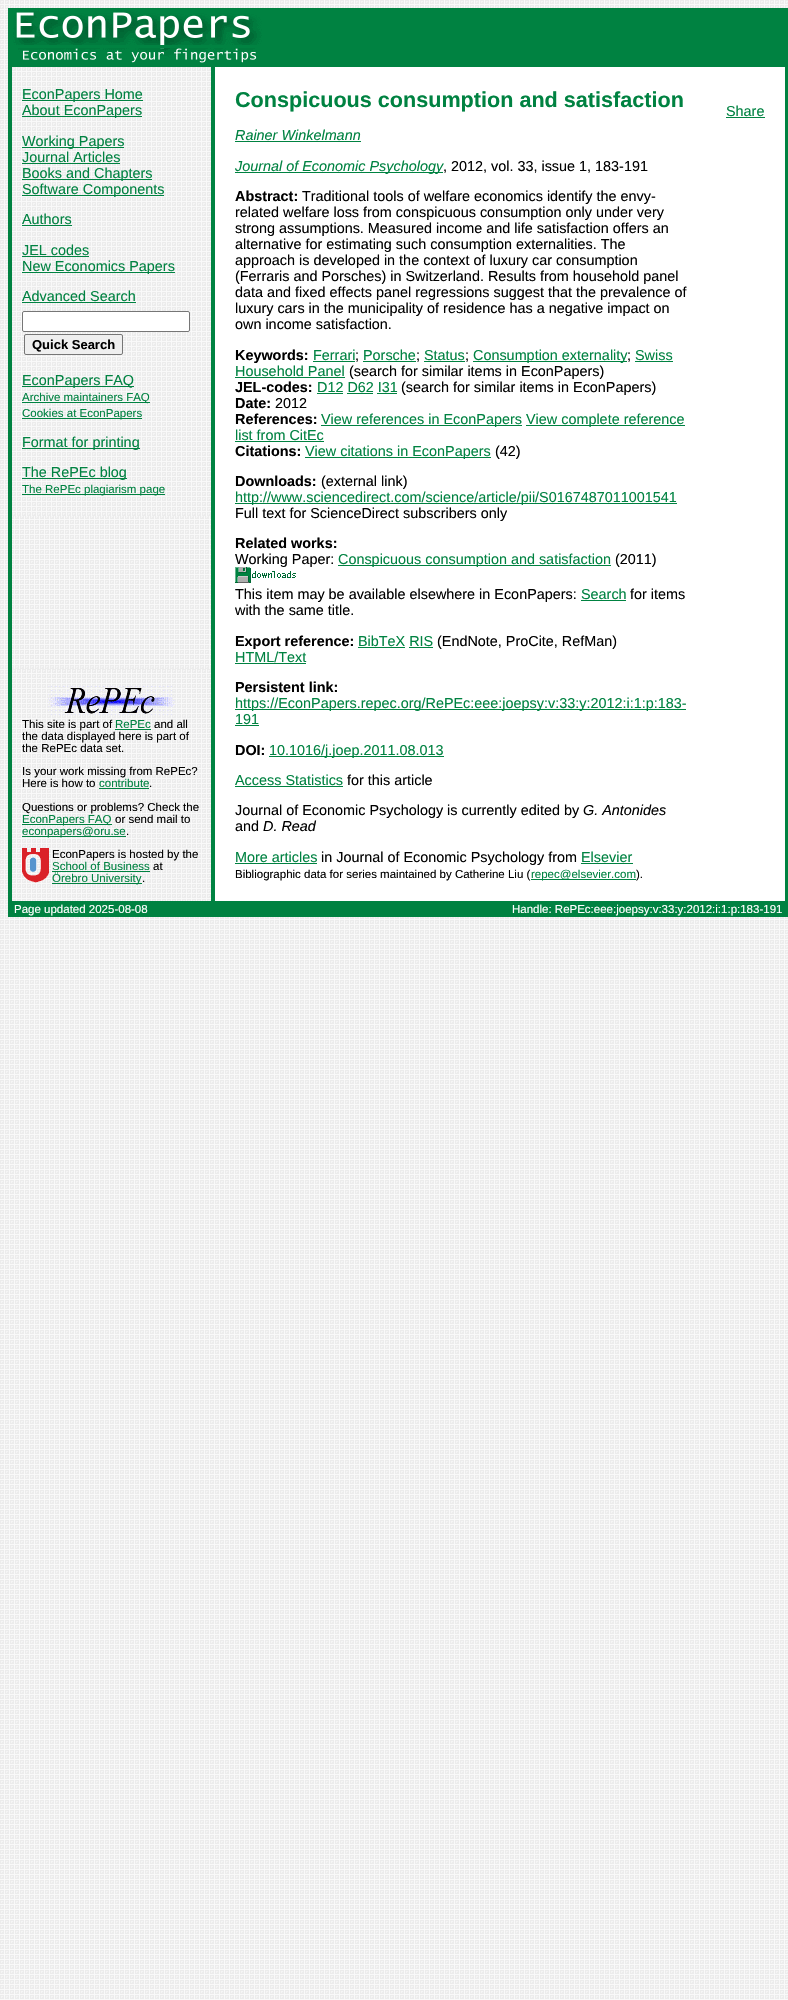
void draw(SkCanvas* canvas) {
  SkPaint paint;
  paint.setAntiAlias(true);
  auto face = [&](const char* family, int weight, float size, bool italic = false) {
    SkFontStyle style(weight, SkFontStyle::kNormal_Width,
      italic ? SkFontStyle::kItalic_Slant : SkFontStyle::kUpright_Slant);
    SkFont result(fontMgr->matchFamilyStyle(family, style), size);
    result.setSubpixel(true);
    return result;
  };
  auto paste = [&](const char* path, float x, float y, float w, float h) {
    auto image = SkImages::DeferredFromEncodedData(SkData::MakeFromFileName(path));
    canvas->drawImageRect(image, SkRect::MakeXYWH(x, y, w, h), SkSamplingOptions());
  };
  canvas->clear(0xffffffff);
  paste("img/1.png", 0, 0, 788, 2000);
  paint.setColor(0xff008241);
  canvas->drawRect(SkRect::MakeXYWH(8, 8, 4, 909), paint);
  canvas->drawRect(SkRect::MakeXYWH(12, 8, 773, 40), paint);
  paste("img/2.png", 13, 10, 249, 35);
  canvas->drawRect(SkRect::MakeXYWH(785, 8, 3, 909), paint);
  canvas->drawRect(SkRect::MakeXYWH(12, 48, 773, 19), paint);
  paste("img/3.png", 18, 48, 239, 15);
  paste("img/4.png", 12, 67, 199, 449);
  {
    const struct { float x, y, w, h; SkColor color; } items[] = {
      {22, 100, 121, 1, 0xff008241},
      {22, 116, 120, 1, 0xff008241},
      {22, 147, 102, 1, 0xff008241},
      {22, 163, 98, 1, 0xff008241},
      {22, 179, 130, 1, 0xff008241},
      {22, 195, 142, 1, 0xff008241},
      {22, 225, 50, 1, 0xff008241},
      {22, 256, 67, 1, 0xff008241},
      {22, 272, 153, 1, 0xff008241},
      {22, 302, 114, 1, 0xff008241},
    };
    for (auto [x, y, w, h, color] : items) {
      paint.setColor(color);
      canvas->drawRect(SkRect::MakeXYWH(x, y, w, h), paint);
    }
  }
  paint.setColor(0xffffffff);
  canvas->drawRoundRect(SkRect::MakeXYWH(22.5f, 311.5f, 167, 20), 1.5f, 1.5f, paint);
  paint.setStroke(true);
  paint.setStrokeWidth(1);
  paint.setColor(0xff767676);
  canvas->drawRoundRect(SkRect::MakeXYWH(22.5f, 311.5f, 167, 20), 1.5f, 1.5f, paint);
  paint.setStroke(false);
  paint.setColor(0xffefefef);
  canvas->drawRoundRect(SkRect::MakeXYWH(24.5f, 334.5f, 98, 20), 1.5f, 1.5f, paint);
  paint.setStroke(true);
  paint.setColor(0xff767676);
  canvas->drawRoundRect(SkRect::MakeXYWH(24.5f, 334.5f, 98, 20), 1.5f, 1.5f, paint);
  paint.setStroke(false);
  {
    const struct { float x, y, w, h; SkColor color; } items[] = {
      {22, 386, 112, 1, 0xff008241},
      {22, 402, 128, 1, 0xff008241},
      {22, 418, 120, 1, 0xff008241},
      {22, 448, 118, 1, 0xff008241},
      {22, 478, 105, 1, 0xff008241},
      {22, 494, 143, 1, 0xff008241},
      {211, 67, 4, 834, 0xff008241},
      {215, 67, 570, 834, 0xffffffff},
      {235, 141, 126, 1, 0xff008241},
      {235, 172, 208, 1, 0xff008241},
      {313, 361, 42, 1, 0xff008241},
      {363, 361, 53, 1, 0xff008241},
      {424, 361, 41, 1, 0xff008241},
      {473, 361, 154, 1, 0xff008241},
      {635, 361, 38, 1, 0xff008241},
      {235, 377, 110, 1, 0xff008241},
      {317, 393, 26, 1, 0xff008241},
      {347, 393, 26, 1, 0xff008241},
      {377, 393, 20, 1, 0xff008241},
      {321, 425, 201, 1, 0xff008241},
      {526, 425, 159, 1, 0xff008241},
      {235, 441, 89, 1, 0xff008241},
      {305, 457, 186, 1, 0xff008241},
      {235, 503, 442, 1, 0xff008241},
      {338, 565, 273, 1, 0xff008241},
    };
    for (auto [x, y, w, h, color] : items) {
      paint.setColor(color);
      canvas->drawRect(SkRect::MakeXYWH(x, y, w, h), paint);
    }
  }
  paste("img/5.png", 235, 567, 61, 16);
  {
    const struct { float x, y, w, h; SkColor color; } items[] = {
      {581, 600, 45, 1, 0xff008241},
      {358, 647, 47, 1, 0xff008241},
      {409, 647, 24, 1, 0xff008241},
      {235, 663, 71, 1, 0xff008241},
      {235, 709, 451, 1, 0xff008241},
      {235, 725, 24, 1, 0xff008241},
      {269, 756, 175, 1, 0xff008241},
      {235, 786, 108, 1, 0xff008241},
      {235, 863, 82, 1, 0xff008241},
      {581, 863, 52, 1, 0xff008241},
      {531, 879, 105, 1, 0xff008241},
      {726, 117, 39, 1, 0xff008241},
    };
    for (auto [x, y, w, h, color] : items) {
      paint.setColor(color);
      canvas->drawRect(SkRect::MakeXYWH(x, y, w, h), paint);
    }
  }
  paste("img/6.png", 12, 669, 199, 232);
  paste("img/7.png", 48, 686, 127, 29);
  {
    const struct { float x, y, w, h; SkColor color; } items[] = {
      {115, 729, 36, 1, 0xff008241},
      {99, 788, 50, 1, 0xff008241},
      {22, 824, 90, 1, 0xff008241},
      {22, 836, 104, 1, 0xff008241},
    };
    for (auto [x, y, w, h, color] : items) {
      paint.setColor(color);
      canvas->drawRect(SkRect::MakeXYWH(x, y, w, h), paint);
    }
  }
  paste("img/8.png", 22, 848, 27, 35);
  {
    const struct { float x, y, w, h; SkColor color; } items[] = {
      {52, 871, 98, 1, 0xff008241},
      {52, 883, 90, 1, 0xff008241},
      {12, 901, 773, 16, 0xff008241},
    };
    for (auto [x, y, w, h, color] : items) {
      paint.setColor(color);
      canvas->drawRect(SkRect::MakeXYWH(x, y, w, h), paint);
    }
  }
  auto f0 = face("Liberation Sans", 400, 14.4f);
  {
    const struct { const char* s; float x, y; } items[] = {
      {"EconPapers Home", 22, 99},
      {"About EconPapers", 22, 115},
      {"Working Papers", 22, 146},
      {"Journal Articles", 22, 162},
      {"Books and Chapters", 22, 178},
      {"Software Components", 22, 194},
      {"Authors", 22, 224},
      {"JEL codes", 22, 255},
      {"New Economics Papers", 22, 271},
      {"Advanced Search", 22, 301},
    };
    for (auto [s, x, y] : items) {
      canvas->drawString(s, x, y, f0, paint);
    }
  }
  auto f1 = face("Liberation Sans", 700, 13);
  paint.setColor(0xff000000);
  canvas->drawString("Quick Search", 32, 349, f1, paint);
  paint.setColor(0xff008241);
  canvas->drawString("EconPapers FAQ", 22, 385, f0, paint);
  auto f2 = face("Liberation Sans", 400, 11.5f);
  canvas->drawString("Archive maintainers FAQ", 22, 401, f2, paint);
  canvas->drawString("Cookies at EconPapers", 22, 417, f2, paint);
  canvas->drawString("Format for printing", 22, 447, f0, paint);
  canvas->drawString("The RePEc blog", 22, 477, f0, paint);
  canvas->drawString("The RePEc plagiarism page", 22, 493, f2, paint);
  auto f3 = face("Liberation Sans", 700, 21.6f);
  canvas->drawString("Conspicuous consumption and satisfaction", 235, 107, f3, paint);
  auto f4 = face("Liberation Sans", 400, 14.4f, true);
  canvas->drawString("Rainer Winkelmann", 235, 140, f4, paint);
  canvas->drawString("Journal of Economic Psychology", 235, 171, f4, paint);
  paint.setColor(0xff000000);
  canvas->drawString(", 2012, vol. 33, issue 1, 183-191", 443, 171, f0, paint);
  auto f5 = face("Liberation Sans", 700, 14.4f);
  canvas->drawString("Abstract:", 235, 201, f5, paint);
  {
    const struct { const char* s; float x, y; } items[] = {
      {"Traditional tools of welfare economics identify the envy-", 302, 201},
      {"related welfare loss from conspicuous consumption only under very", 235, 217},
      {"strong assumptions. Measured income and life satisfaction offers an", 235, 233},
      {"alternative for estimating such consumption externalities. The", 235, 249},
      {"approach is developed in the context of luxury car consumption", 235, 265},
      {"(Ferraris and Porsches) in Switzerland. Results from household panel", 235, 281},
      {"data and fixed effects panel regressions suggest that the prevalence of", 235, 297},
      {"luxury cars in the municipality of residence has a negative impact on", 235, 313},
      {"own income satisfaction.", 235, 329},
    };
    for (auto [s, x, y] : items) {
      canvas->drawString(s, x, y, f0, paint);
    }
  }
  canvas->drawString("Keywords:", 235, 360, f5, paint);
  paint.setColor(0xff008241);
  canvas->drawString("Ferrari", 313, 360, f0, paint);
  paint.setColor(0xff000000);
  canvas->drawString(";", 355, 360, f0, paint);
  paint.setColor(0xff008241);
  canvas->drawString("Porsche", 363, 360, f0, paint);
  paint.setColor(0xff000000);
  canvas->drawString(";", 416, 360, f0, paint);
  paint.setColor(0xff008241);
  canvas->drawString("Status", 424, 360, f0, paint);
  paint.setColor(0xff000000);
  canvas->drawString(";", 465, 360, f0, paint);
  paint.setColor(0xff008241);
  canvas->drawString("Consumption externality", 473, 360, f0, paint);
  paint.setColor(0xff000000);
  canvas->drawString(";", 627, 360, f0, paint);
  paint.setColor(0xff008241);
  canvas->drawString("Swiss", 635, 360, f0, paint);
  canvas->drawString("Household Panel", 235, 376, f0, paint);
  paint.setColor(0xff000000);
  canvas->drawString("(search for similar items in EconPapers)", 349, 376, f0, paint);
  canvas->drawString("JEL-codes:", 235, 392, f5, paint);
  paint.setColor(0xff008241);
  canvas->drawString("D12 D62 I31", 317, 392, f0, paint);
  paint.setColor(0xff000000);
  canvas->drawString("(search for similar items in EconPapers)", 401, 392, f0, paint);
  canvas->drawString("Date:", 235, 408, f5, paint);
  canvas->drawString("2012", 275, 408, f0, paint);
  canvas->drawString("References:", 235, 424, f5, paint);
  paint.setColor(0xff008241);
  {
    const struct { const char* s; float x, y; } items[] = {
      {"View references in EconPapers", 321, 424},
      {"View complete reference", 526, 424},
      {"list from CitEc", 235, 440},
    };
    for (auto [s, x, y] : items) {
      canvas->drawString(s, x, y, f0, paint);
    }
  }
  paint.setColor(0xff000000);
  canvas->drawString("Citations:", 235, 456, f5, paint);
  paint.setColor(0xff008241);
  canvas->drawString("View citations in EconPapers", 305, 456, f0, paint);
  paint.setColor(0xff000000);
  canvas->drawString("(42)", 495, 456, f0, paint);
  canvas->drawString("Downloads:", 235, 486, f5, paint);
  canvas->drawString("(external link)", 321, 486, f0, paint);
  paint.setColor(0xff008241);
  canvas->drawString("http://www.sciencedirect.com/science/article/pii/S0167487011001541", 235, 502, f0, paint);
  paint.setColor(0xff000000);
  canvas->drawString("Full text for ScienceDirect subscribers only", 235, 518, f0, paint);
  canvas->drawString("Related works:", 235, 548, f5, paint);
  canvas->drawString("Working Paper:", 235, 564, f0, paint);
  paint.setColor(0xff008241);
  canvas->drawString("Conspicuous consumption and satisfaction", 338, 564, f0, paint);
  paint.setColor(0xff000000);
  canvas->drawString("(2011)", 615, 564, f0, paint);
  canvas->drawString("This item may be available elsewhere in EconPapers:", 235, 599, f0, paint);
  paint.setColor(0xff008241);
  canvas->drawString("Search", 581, 599, f0, paint);
  paint.setColor(0xff000000);
  canvas->drawString("for items", 630, 599, f0, paint);
  canvas->drawString("with the same title.", 235, 615, f0, paint);
  canvas->drawString("Export reference:", 235, 646, f5, paint);
  paint.setColor(0xff008241);
  canvas->drawString("BibTeX RIS", 358, 646, f0, paint);
  paint.setColor(0xff000000);
  canvas->drawString("(EndNote, ProCite, RefMan)", 437, 646, f0, paint);
  paint.setColor(0xff008241);
  canvas->drawString("HTML/Text", 235, 662, f0, paint);
  paint.setColor(0xff000000);
  canvas->drawString("Persistent link:", 235, 692, f5, paint);
  paint.setColor(0xff008241);
  canvas->drawString("https://EconPapers.repec.org/RePEc:eee:joepsy:v:33:y:2012:i:1:p:183-", 235, 708, f0, paint);
  canvas->drawString("191", 235, 724, f0, paint);
  paint.setColor(0xff000000);
  canvas->drawString("DOI:", 235, 755, f5, paint);
  paint.setColor(0xff008241);
  canvas->drawString("10.1016/j.joep.2011.08.013", 269, 755, f0, paint);
  canvas->drawString("Access Statistics", 235, 785, f0, paint);
  paint.setColor(0xff000000);
  canvas->drawString("for this article", 347, 785, f0, paint);
  canvas->drawString("Journal of Economic Psychology is currently edited by", 235, 815, f0, paint);
  canvas->drawString("G. Antonides", 583, 815, f4, paint);
  canvas->drawString("and", 235, 831, f0, paint);
  canvas->drawString("D. Read", 263, 831, f4, paint);
  paint.setColor(0xff008241);
  canvas->drawString("More articles", 235, 862, f0, paint);
  paint.setColor(0xff000000);
  canvas->drawString("in Journal of Economic Psychology from", 321, 862, f0, paint);
  paint.setColor(0xff008241);
  canvas->drawString("Elsevier", 581, 862, f0, paint);
  paint.setColor(0xff000000);
  canvas->drawString("Bibliographic data for series maintained by Catherine Liu (", 235, 878, f2, paint);
  paint.setColor(0xff008241);
  canvas->drawString("repec@elsevier.com", 531, 878, f2, paint);
  paint.setColor(0xff000000);
  canvas->drawString(").", 636, 878, f2, paint);
  paint.setColor(0xff008241);
  canvas->drawString("Share", 726, 116, f0, paint);
  paint.setColor(0xff000000);
  canvas->drawString("This site is part of", 22, 728, f2, paint);
  paint.setColor(0xff008241);
  canvas->drawString("RePEc", 115, 728, f2, paint);
  paint.setColor(0xff000000);
  {
    const struct { const char* s; float x, y; } items[] = {
      {"and all", 154, 728},
      {"the data displayed here is part of", 22, 740},
      {"the RePEc data set.", 22, 752},
      {"Is your work missing from RePEc?", 22, 775},
      {"Here is how to", 22, 787},
    };
    for (auto [s, x, y] : items) {
      canvas->drawString(s, x, y, f2, paint);
    }
  }
  paint.setColor(0xff008241);
  canvas->drawString("contribute", 99, 787, f2, paint);
  paint.setColor(0xff000000);
  canvas->drawString(".", 149, 787, f2, paint);
  canvas->drawString("Questions or problems? Check the", 22, 811, f2, paint);
  paint.setColor(0xff008241);
  canvas->drawString("EconPapers FAQ", 22, 823, f2, paint);
  paint.setColor(0xff000000);
  canvas->drawString("or send mail to", 115, 823, f2, paint);
  paint.setColor(0xff008241);
  canvas->drawString("econpapers@oru.se", 22, 835, f2, paint);
  paint.setColor(0xff000000);
  canvas->drawString(".", 126, 835, f2, paint);
  canvas->drawString("EconPapers is hosted by the", 52, 858, f2, paint);
  paint.setColor(0xff008241);
  canvas->drawString("School of Business", 52, 870, f2, paint);
  paint.setColor(0xff000000);
  canvas->drawString("at", 153, 870, f2, paint);
  paint.setColor(0xff008241);
  canvas->drawString("Örebro University", 52, 882, f2, paint);
  paint.setColor(0xff000000);
  canvas->drawString(".", 142, 882, f2, paint);
  paint.setColor(0xffffffff);
  canvas->drawString("Page updated 2025-08-08", 14, 913, f2, paint);
  canvas->drawString("Handle: RePEc:eee:joepsy:v:33:y:2012:i:1:p:183-191", 512, 913, f2, paint);
}
